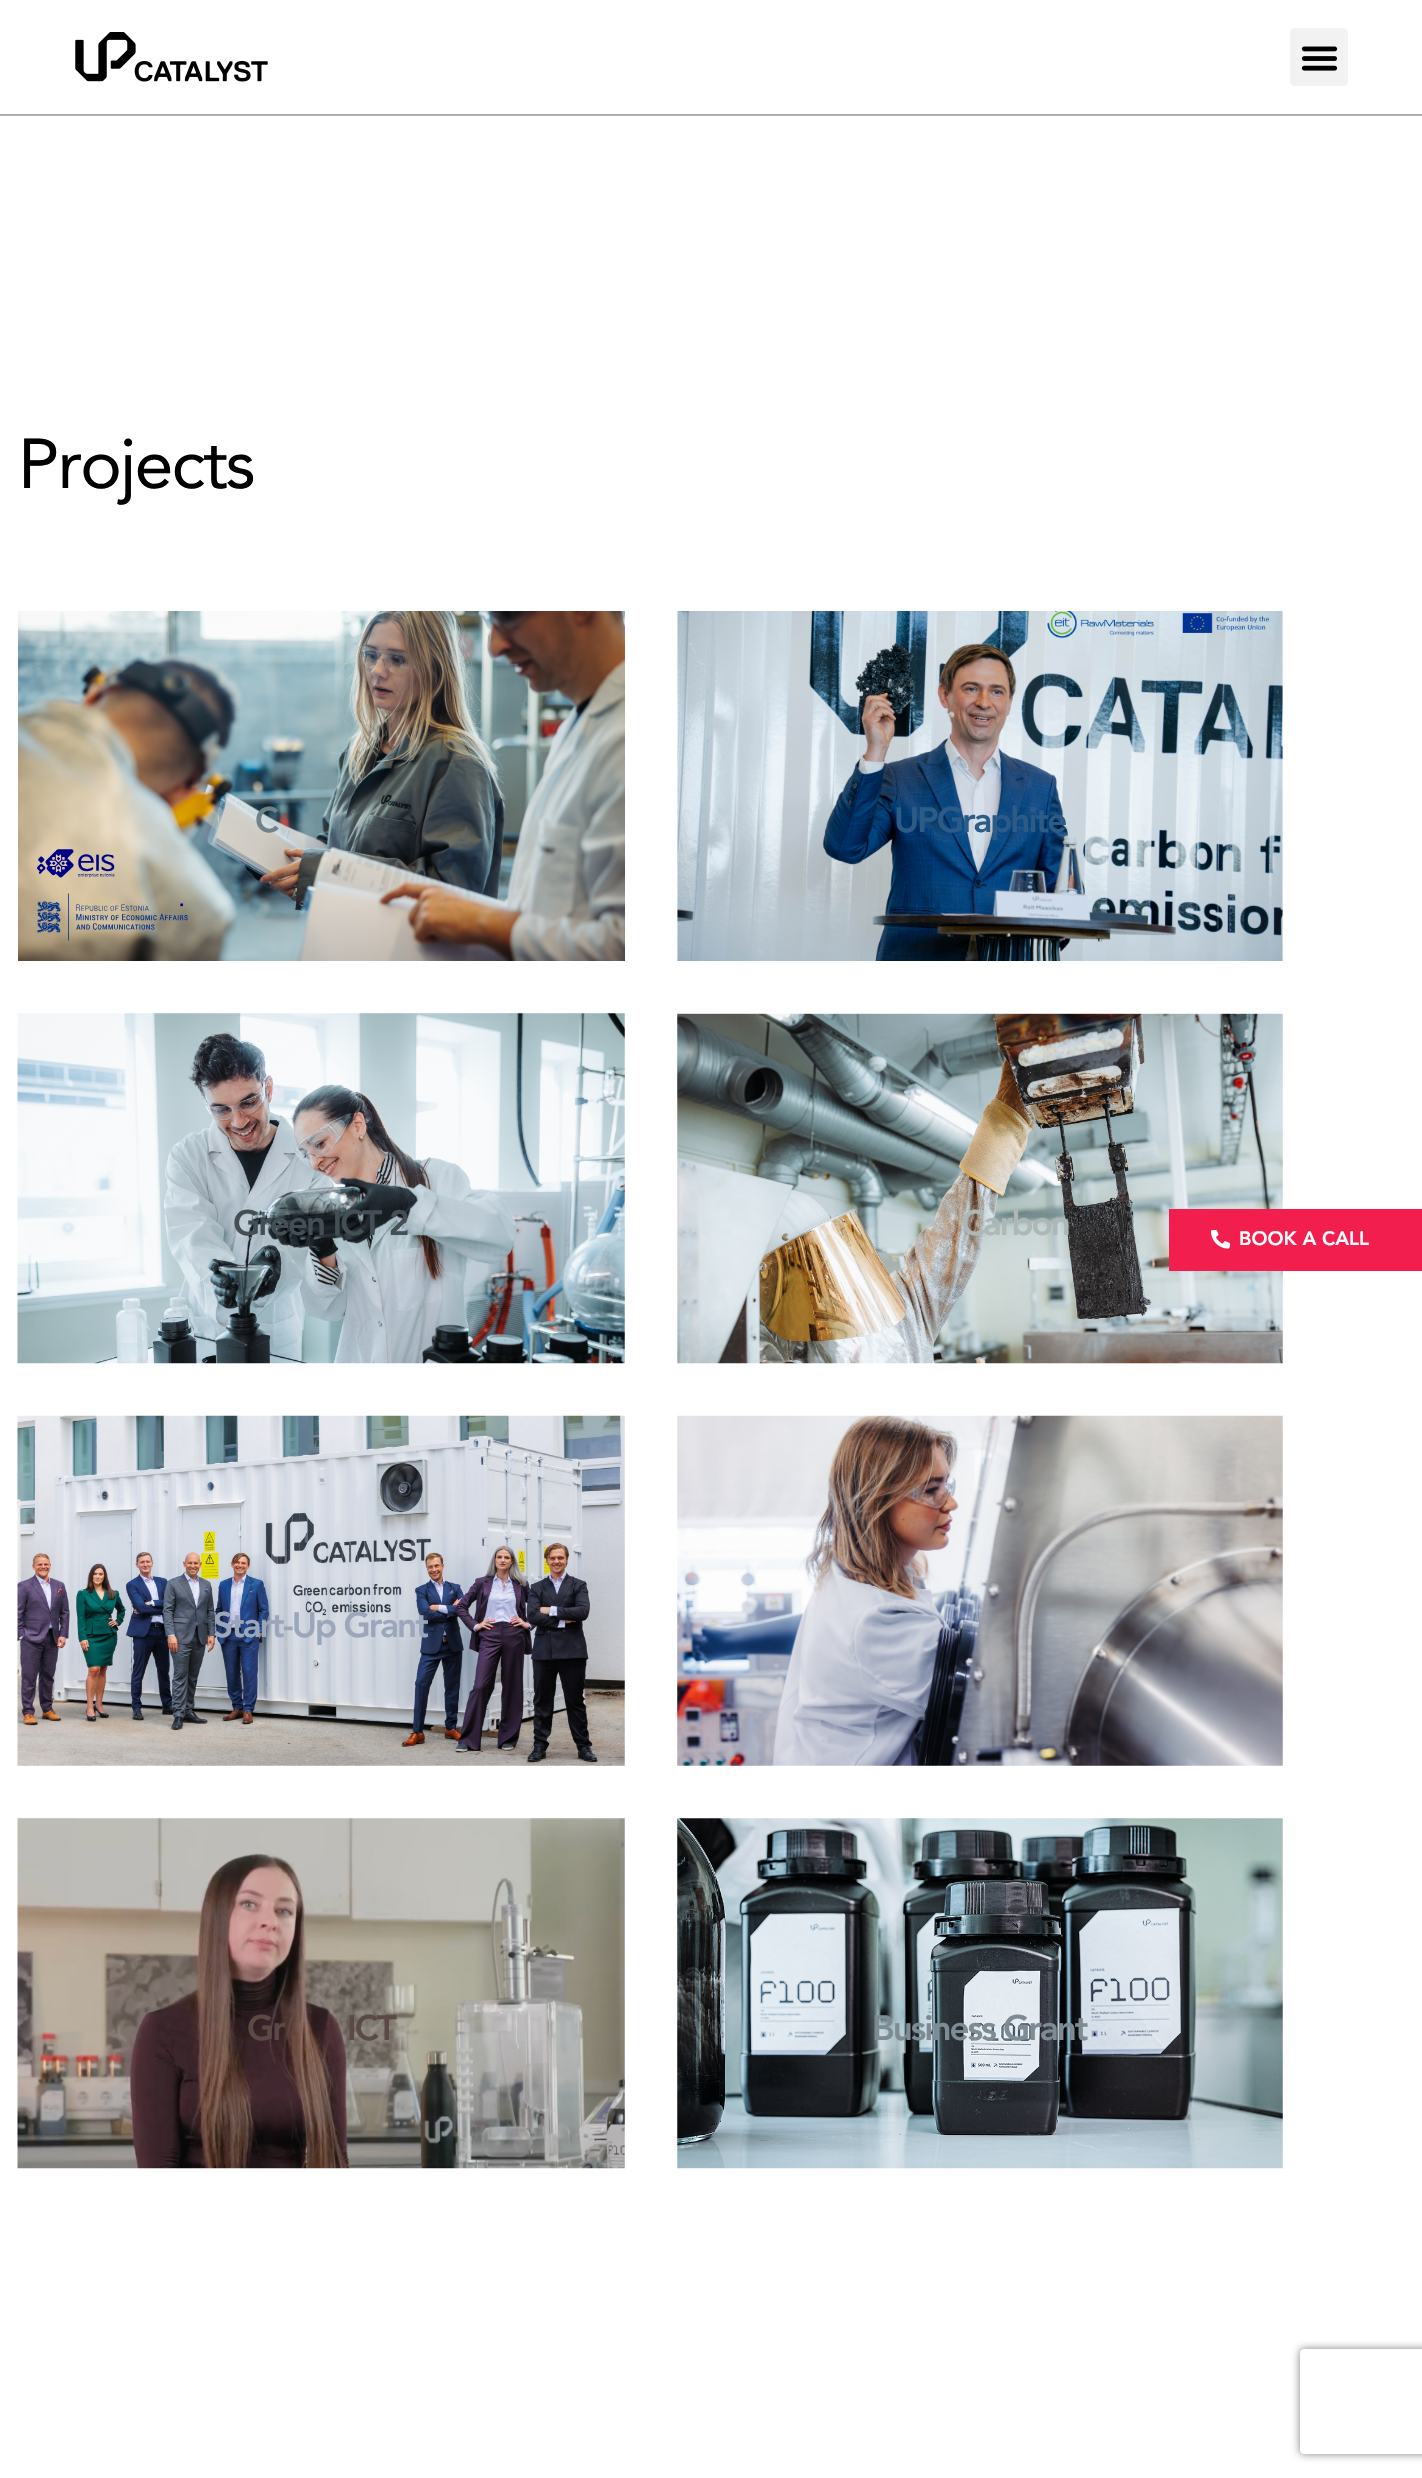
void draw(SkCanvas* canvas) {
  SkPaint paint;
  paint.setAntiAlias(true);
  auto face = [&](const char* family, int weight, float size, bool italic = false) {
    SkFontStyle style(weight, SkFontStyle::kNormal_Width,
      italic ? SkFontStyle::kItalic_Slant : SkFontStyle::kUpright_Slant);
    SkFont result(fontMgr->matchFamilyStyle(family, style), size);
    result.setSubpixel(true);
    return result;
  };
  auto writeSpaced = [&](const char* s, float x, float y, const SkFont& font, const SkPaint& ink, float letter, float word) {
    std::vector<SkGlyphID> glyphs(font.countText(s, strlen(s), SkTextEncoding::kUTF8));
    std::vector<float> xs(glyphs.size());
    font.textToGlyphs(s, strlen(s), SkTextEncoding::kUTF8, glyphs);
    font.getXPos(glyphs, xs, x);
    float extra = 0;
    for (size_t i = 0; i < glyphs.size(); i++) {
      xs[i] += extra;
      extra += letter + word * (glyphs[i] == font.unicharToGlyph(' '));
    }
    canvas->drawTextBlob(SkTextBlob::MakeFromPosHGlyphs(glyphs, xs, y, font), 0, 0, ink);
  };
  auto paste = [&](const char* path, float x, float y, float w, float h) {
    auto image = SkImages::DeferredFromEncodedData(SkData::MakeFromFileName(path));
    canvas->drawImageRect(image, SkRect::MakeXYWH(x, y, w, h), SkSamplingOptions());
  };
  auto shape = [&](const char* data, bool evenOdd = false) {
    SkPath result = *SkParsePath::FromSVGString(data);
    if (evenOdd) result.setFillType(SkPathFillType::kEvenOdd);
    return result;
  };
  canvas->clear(0xffffffff);
  paste("img/1.png", 18, 611, 607, 350);
  paste("img/2.png", 677, 611, 606, 350);
  paste("img/3.png", 17, 1013, 608, 351);
  paste("img/4.png", 677, 1013, 606, 351);
  paste("img/5.png", 17, 1415, 608, 351);
  paste("img/6.png", 677, 1415, 606, 351);
  paste("img/7.png", 17, 1818, 608, 351);
  paste("img/8.png", 677, 1818, 606, 351);
  paste("img/9.png", 75, 32, 193, 50);
  paint.setColor(0xfff2f2f2);
  canvas->drawRoundRect(SkRect::MakeXYWH(1290, 28, 58, 58), 5, 5, paint);
  paste("img/10.png", 1301, 46, 37, 25);
  paint.setColor(0xffb0b0b0);
  canvas->drawRect(SkRect::MakeXYWH(0, 114, 1422, 2), paint);
  paint.setColor(0xfff21e4e);
  canvas->drawRect(SkRect::MakeXYWH(1169, 1209, 253, 62), paint);
  paste("img/11.png", 1211, 1230, 19, 19);
  canvas->save();
  canvas->clipPath(shape("M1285 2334H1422V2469H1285ZM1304 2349H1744C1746 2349 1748 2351 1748 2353V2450C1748 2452 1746 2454 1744 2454H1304C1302 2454 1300 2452 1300 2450V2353C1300 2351 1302 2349 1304 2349Z", true), true);
  paint.setColor(0xff808080);
  paint.setMaskFilter(SkMaskFilter::MakeBlur(kNormal_SkBlurStyle, 4.5f));
  canvas->drawRoundRect(SkRect::MakeXYWH(1300, 2349, 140, 105), 4, 4, paint);
  paint.setMaskFilter(nullptr);
  canvas->restore();
  auto f0 = face("Avenir", 400, 70);
  paint.setColor(0xff000000);
  writeSpaced("Projects", 18, 488, f0, paint, -2, 0);
  auto f1 = face("Avenir", 900, 35);
  paint.setColor(0xff708288);
  writeSpaced("C", 255, 832, f1, paint, -2, 0);
  paint.setColor(0xff2c5b88);
  writeSpaced("UPGraphite", 894, 832, f1, paint, -2, 0);
  paint.setColor(0xff444e55);
  writeSpaced("Green ICT 2", 233, 1235, f1, paint, -2, 0);
  paint.setColor(0xffacb7b6);
  writeSpaced("Carbon", 961, 1235, f1, paint, -2, 0);
  paint.setColor(0xff9ca6bb);
  writeSpaced("Start-Up Grant", 213, 1637, f1, paint, -2, 0);
  paint.setColor(0xff5b4946);
  writeSpaced("Gr", 247, 2040, f1, paint, -2, 0);
  writeSpaced("ICT", 347, 2040, f1, paint, -2, 0);
  paint.setColor(0xff7f8b93);
  writeSpaced("Business Grant", 872, 2040, f1, paint, -2, 0);
  auto f2 = face("Avenir", 900, 19.25f);
  paint.setColor(0xffffffff);
  canvas->drawString("BOOK A CALL", 1239, 1245, f2, paint);
}
